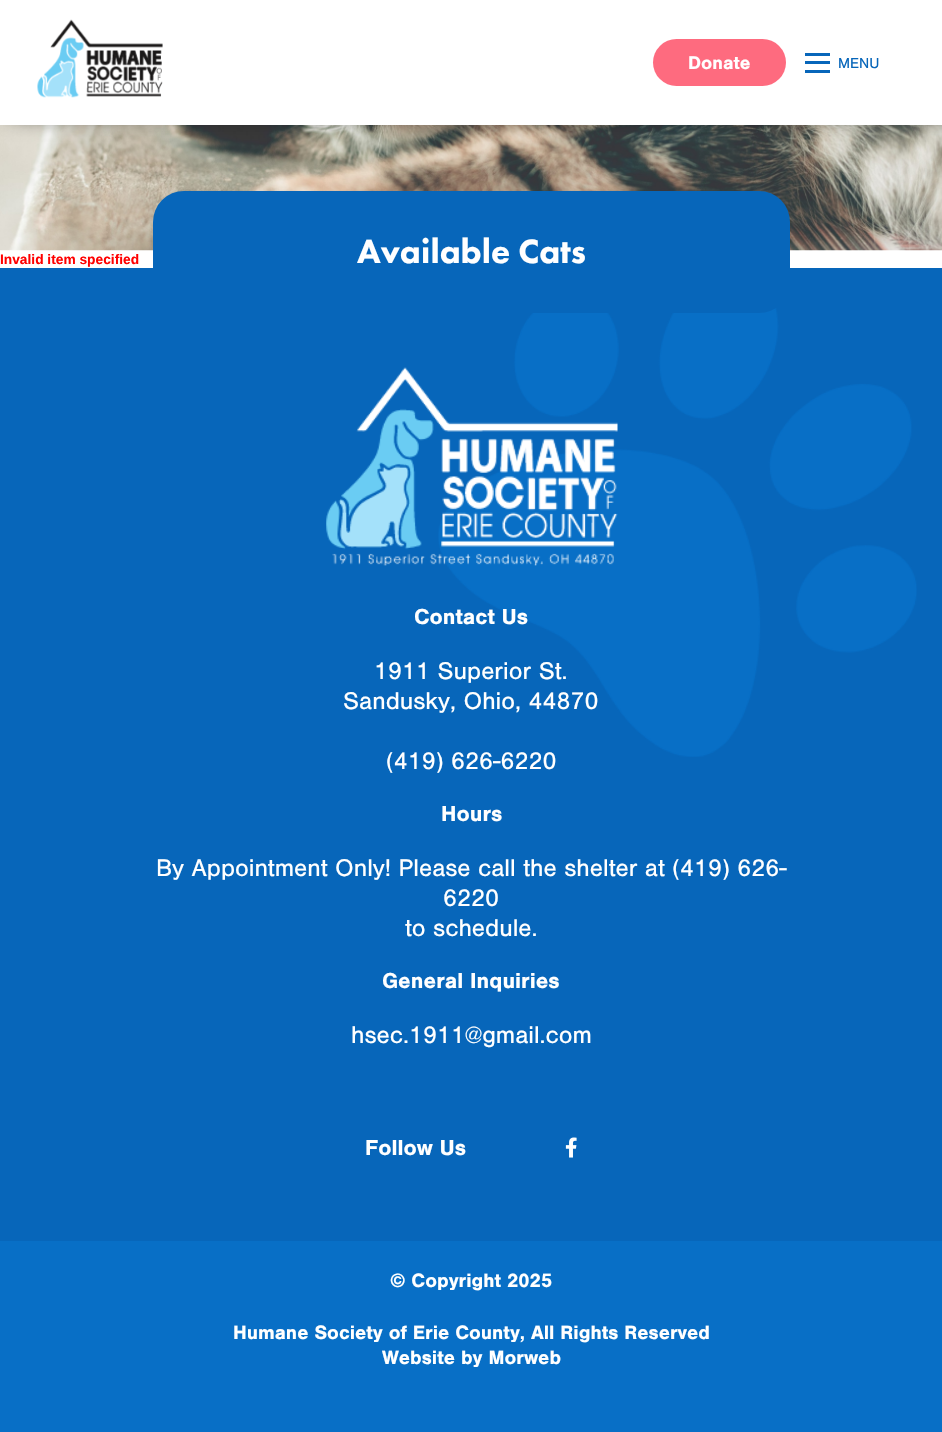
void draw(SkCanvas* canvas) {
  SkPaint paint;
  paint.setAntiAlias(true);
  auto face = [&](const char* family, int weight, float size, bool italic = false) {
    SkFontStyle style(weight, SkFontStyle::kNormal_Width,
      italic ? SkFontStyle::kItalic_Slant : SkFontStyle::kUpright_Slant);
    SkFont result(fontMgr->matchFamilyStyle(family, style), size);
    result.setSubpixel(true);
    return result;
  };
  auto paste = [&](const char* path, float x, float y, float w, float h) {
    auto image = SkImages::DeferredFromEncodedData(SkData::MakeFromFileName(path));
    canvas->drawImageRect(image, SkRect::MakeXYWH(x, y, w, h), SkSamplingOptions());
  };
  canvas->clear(0xffffffff);
  paste("img/2.png", 0, 125, 942, 126);
  paint.setColor(0xff000000);
  paint.setMaskFilter(SkMaskFilter::MakeBlur(kNormal_SkBlurStyle, 9.5f));
  canvas->drawRect(SkRect::MakeXYWH(11, 11, 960, 103), paint);
  paint.setMaskFilter(nullptr);
  paint.setColor(0xffffffff);
  canvas->drawRect(SkRect::MakeXYWH(0, 0, 942, 125), paint);
  paste("img/1.png", 37, 19, 126, 79);
  paint.setColor(0xfffe6b7f);
  canvas->drawRoundRect(SkRect::MakeXYWH(653, 39, 133, 47), 23.5f, 23.5f, paint);
  {
    const struct { float x, y, w, h; SkColor color; } items[] = {
      {805, 53, 25, 3, 0xff0766ba},
      {805, 61, 25, 3, 0xff0766ba},
      {805, 70, 25, 3, 0xff0766ba},
      {0, 268, 942, 973, 0xff0766ba},
    };
    for (auto [x, y, w, h, color] : items) {
      paint.setColor(color);
      canvas->drawRect(SkRect::MakeXYWH(x, y, w, h), paint);
    }
  }
  paste("img/3.png", 438, 307, 479, 450);
  canvas->drawRoundRect(SkRect::MakeXYWH(153, 191, 637, 122), 31, 31, paint);
  paste("img/4.png", 326, 367, 292, 199);
  paste("img/5.png", 565, 1137, 12, 21);
  paint.setColor(0xff086fc6);
  canvas->drawRect(SkRect::MakeXYWH(0, 1241, 942, 191), paint);
  auto f0 = face("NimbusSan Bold", 700, 19);
  paint.setColor(0xffffffff);
  canvas->drawString("Donate", 688, 69, f0, paint);
  auto f1 = face("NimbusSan", 400, 15);
  paint.setColor(0xff0766ba);
  canvas->drawString("MENU", 838, 68, f1, paint);
  auto f2 = face("Liberation Sans", 700, 13.75f);
  paint.setColor(0xffff0000);
  canvas->drawString("Invalid item specified", 0, 264, f2, paint);
  auto f3 = face("Futura PT", 900, 35);
  paint.setColor(0xffffffff);
  canvas->drawString("Available Cats", 357, 263, f3, paint);
  auto f4 = face("NimbusSan Bold", 700, 22.5f);
  canvas->drawString("Contact Us", 414, 624, f4, paint);
  auto f5 = face("NimbusSan", 400, 25);
  {
    const struct { const char* s; float x, y; } items[] = {
      {"1911 Superior St.", 374, 679},
      {"Sandusky, Ohio, 44870", 343, 709},
      {"(419) 626-6220", 386, 769},
    };
    for (auto [s, x, y] : items) {
      canvas->drawString(s, x, y, f5, paint);
    }
  }
  canvas->drawString("Hours", 441, 821, f4, paint);
  {
    const struct { const char* s; float x, y; } items[] = {
      {"By Appointment Only! Please call the shelter at (419) 626-", 156, 876},
      {"6220", 443, 906},
      {"to schedule.", 405, 936},
    };
    for (auto [s, x, y] : items) {
      canvas->drawString(s, x, y, f5, paint);
    }
  }
  canvas->drawString("General Inquiries", 382, 988, f4, paint);
  canvas->drawString("hsec.1911@gmail.com", 351, 1043, f5, paint);
  canvas->drawString("Follow Us", 365, 1155, f4, paint);
  auto f6 = face("NimbusSan Bold", 700, 20);
  {
    const struct { const char* s; float x, y; } items[] = {
      {"© Copyright 2025", 390, 1287},
      {"Humane Society of Erie County, All Rights Reserved", 233, 1339},
      {"Website by Morweb", 382, 1364},
    };
    for (auto [s, x, y] : items) {
      canvas->drawString(s, x, y, f6, paint);
    }
  }
}
